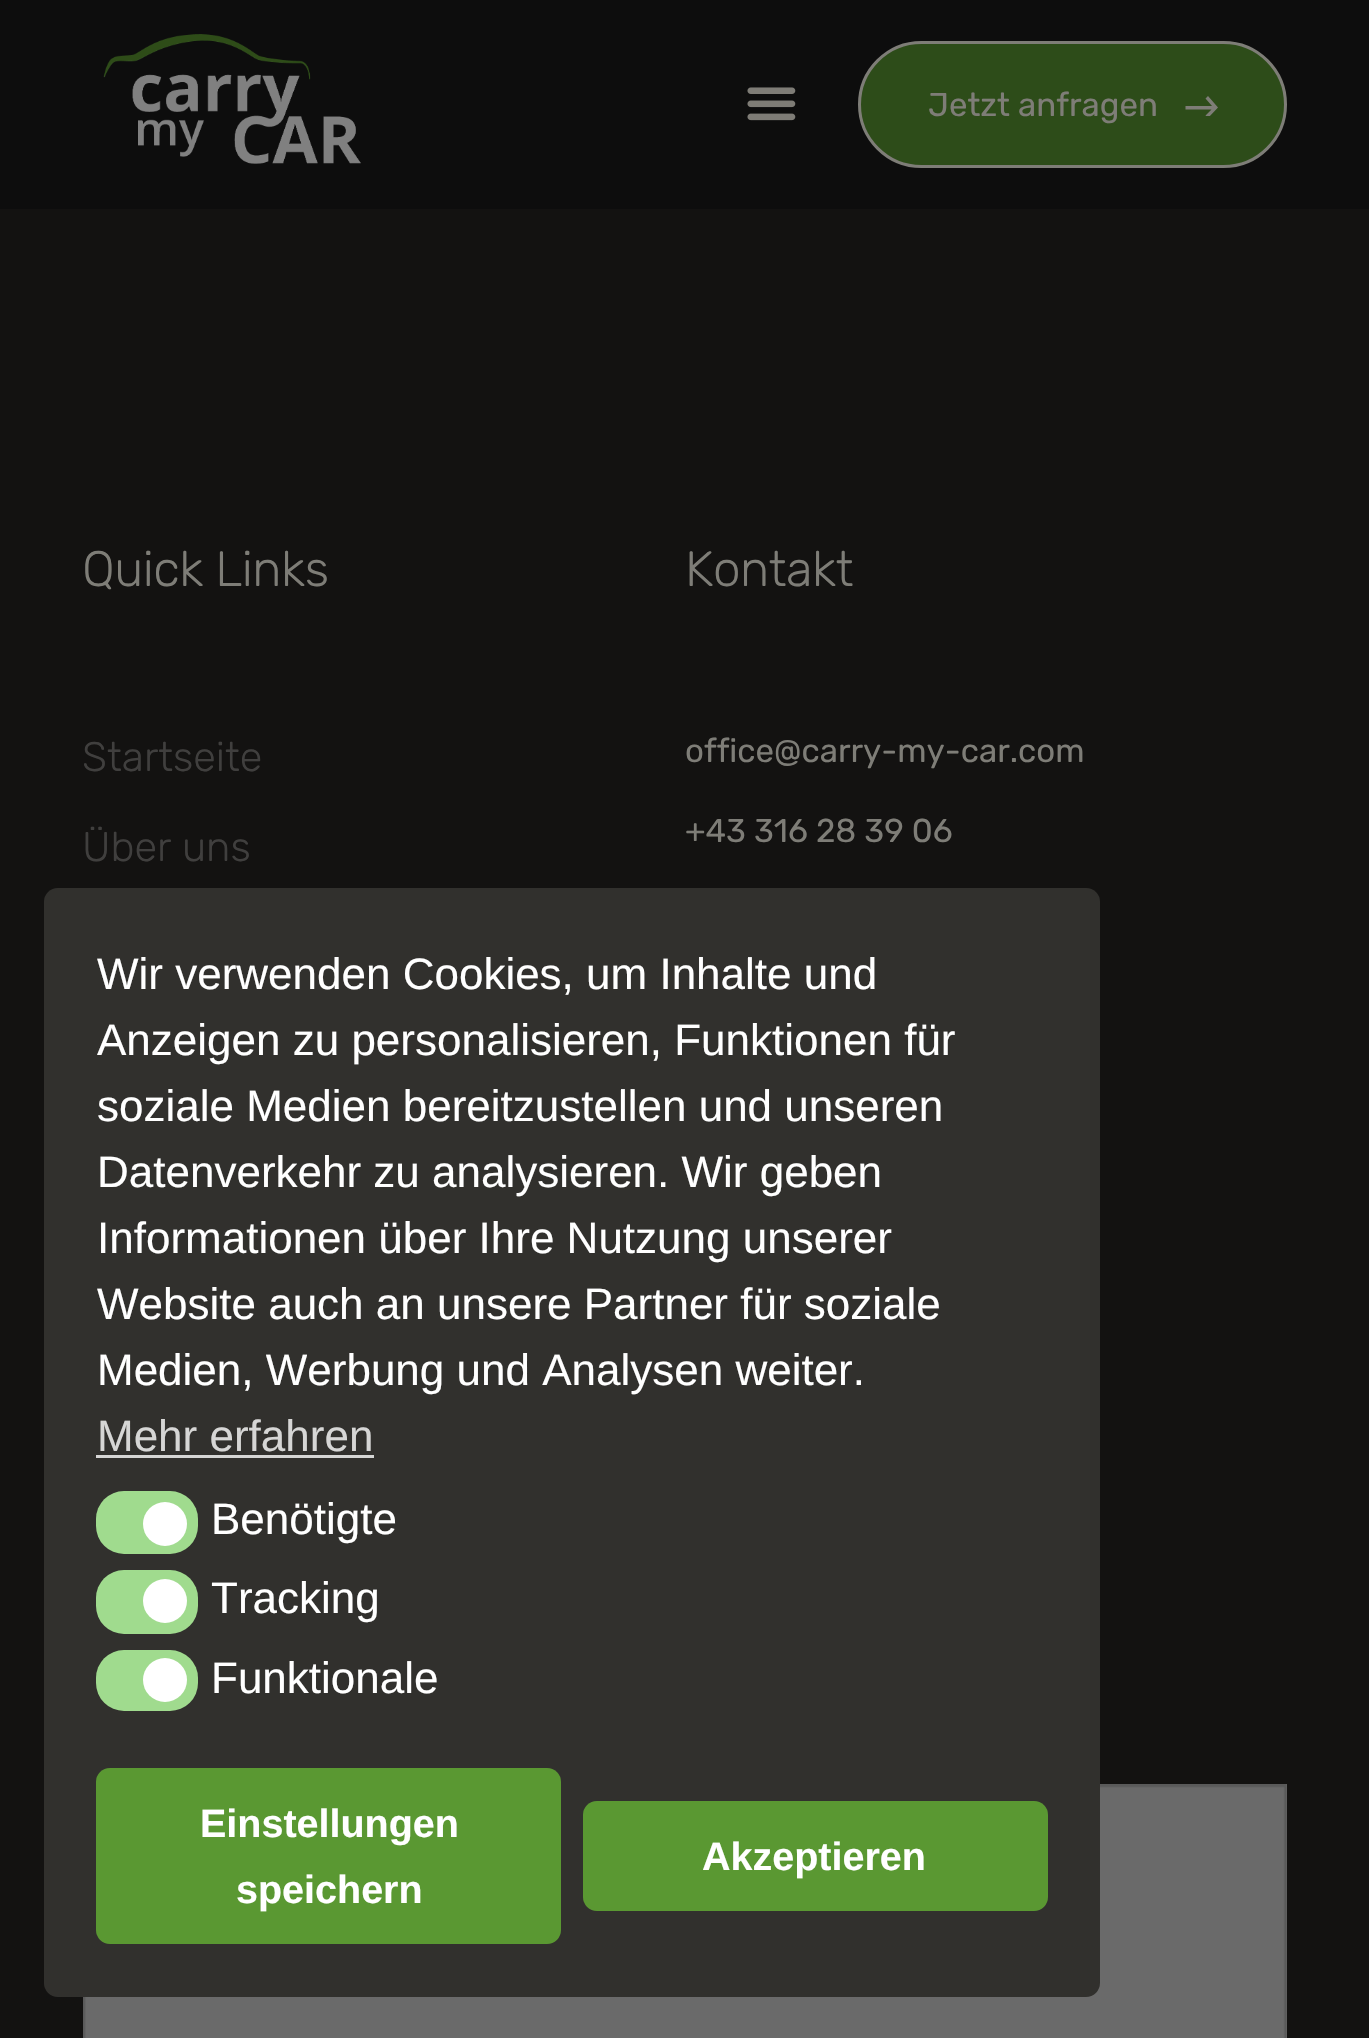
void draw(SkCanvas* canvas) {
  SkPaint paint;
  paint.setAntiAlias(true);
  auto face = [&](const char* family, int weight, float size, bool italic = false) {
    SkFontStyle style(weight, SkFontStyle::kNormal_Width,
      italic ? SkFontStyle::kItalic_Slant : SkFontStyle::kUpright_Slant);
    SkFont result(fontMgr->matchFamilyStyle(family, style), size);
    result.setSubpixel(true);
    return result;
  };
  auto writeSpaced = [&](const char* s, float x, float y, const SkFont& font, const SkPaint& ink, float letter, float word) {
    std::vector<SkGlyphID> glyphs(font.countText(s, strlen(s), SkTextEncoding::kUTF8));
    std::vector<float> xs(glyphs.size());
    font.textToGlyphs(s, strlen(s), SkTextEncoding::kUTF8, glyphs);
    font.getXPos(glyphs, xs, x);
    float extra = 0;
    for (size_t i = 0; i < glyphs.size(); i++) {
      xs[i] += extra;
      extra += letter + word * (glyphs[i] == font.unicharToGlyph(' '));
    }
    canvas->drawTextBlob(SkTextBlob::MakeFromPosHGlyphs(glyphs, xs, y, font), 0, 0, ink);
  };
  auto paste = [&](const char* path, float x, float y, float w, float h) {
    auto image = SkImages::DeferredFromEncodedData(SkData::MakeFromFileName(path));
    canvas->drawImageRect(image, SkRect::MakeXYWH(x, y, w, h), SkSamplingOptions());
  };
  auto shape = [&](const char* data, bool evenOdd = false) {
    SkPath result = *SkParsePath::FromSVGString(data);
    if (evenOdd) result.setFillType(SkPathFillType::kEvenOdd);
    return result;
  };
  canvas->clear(0xff131211);
  paint.setColor(0xff0d0d0d);
  canvas->drawRect(SkRect::MakeXYWH(0, 0, 1369, 209), paint);
  paste("img/1.png", 103, 34, 258, 130);
  paste("img/2.png", 747, 87, 49, 34);
  paint.setColor(0xff2d4c19);
  canvas->drawRoundRect(SkRect::MakeXYWH(859.5f, 42.5f, 426, 124), 62, 62, paint);
  paint.setStroke(true);
  paint.setStrokeWidth(3);
  paint.setColor(0xff7e7d77);
  canvas->drawRoundRect(SkRect::MakeXYWH(859.5f, 42.5f, 426, 124), 62, 62, paint);
  canvas->save();
  canvas->clipRect(SkRect::MakeXYWH(1185, 96, 33, 20));
  paint.setStroke(false);
  canvas->drawPath(shape("M1208 96L1205.5 98.5L1212 106H1185.5V109.5H1211.5L1205.5 115.5L1208 118L1218 107.5Z"), paint);
  canvas->restore();
  paste("img/3.png", 83, 1784, 1204, 254);
  paint.setColor(0xff31302d);
  canvas->drawRoundRect(SkRect::MakeXYWH(44, 888, 1056, 1109), 14, 14, paint);
  paint.setColor(0xffd6d6d5);
  canvas->drawRect(SkRect::MakeXYWH(96, 1455, 278, 3), paint);
  paint.setColor(0xffa0db8e);
  canvas->drawRoundRect(SkRect::MakeXYWH(96, 1491, 102, 63), 28, 28, paint);
  paint.setColor(0xffffffff);
  canvas->drawCircle(165, 1524, 22, paint);
  paint.setColor(0xffa0db8e);
  canvas->drawRoundRect(SkRect::MakeXYWH(96, 1570, 102, 64), 28, 28, paint);
  paint.setColor(0xffffffff);
  canvas->drawCircle(165, 1601, 22, paint);
  paint.setColor(0xffa0db8e);
  canvas->drawRoundRect(SkRect::MakeXYWH(96, 1650, 102, 61), 28, 28, paint);
  paint.setColor(0xffffffff);
  canvas->drawCircle(165, 1680, 22, paint);
  paint.setColor(0xff5a9832);
  canvas->drawRoundRect(SkRect::MakeXYWH(96, 1768, 465, 176), 14, 14, paint);
  canvas->drawRoundRect(SkRect::MakeXYWH(583, 1801, 465, 110), 14, 14, paint);
  auto f0 = face("Rubik", 400, 33);
  paint.setColor(0xff7e7d77);
  canvas->drawString("Jetzt anfragen", 928, 116, f0, paint);
  auto f1 = face("Rubik", 300, 49.5f);
  writeSpaced("Quick Links", 82, 586, f1, paint, -0.5f, 0);
  auto f2 = face("Rubik", 300, 41.25f);
  paint.setColor(0xff403f3e);
  canvas->drawString("Startseite", 82, 771, f2, paint);
  canvas->drawString("Über uns", 82, 861, f2, paint);
  paint.setColor(0xff7e7d77);
  writeSpaced("Kontakt", 685, 586, f1, paint, -0.5f, 0);
  canvas->drawString("office@carry-my-car.com", 685, 762, f0, paint);
  canvas->drawString("+43 316 28 39 06", 685, 842, f0, paint);
  auto f3 = face("Liberation Sans", 400, 44);
  paint.setColor(0xffffffff);
  {
    const struct { const char* s; float x, y; } items[] = {
      {"Wir verwenden Cookies, um Inhalte und", 97, 989},
      {"Anzeigen zu personalisieren, Funktionen für", 97, 1055},
      {"soziale Medien bereitzustellen und unseren", 97, 1121},
      {"Datenverkehr zu analysieren. Wir geben", 97, 1187},
      {"Informationen über Ihre Nutzung unserer", 97, 1253},
      {"Website auch an unsere Partner für soziale", 97, 1319},
      {"Medien, Werbung und Analysen weiter.", 97, 1385},
    };
    for (auto [s, x, y] : items) {
      canvas->drawString(s, x, y, f3, paint);
    }
  }
  paint.setColor(0xffd6d6d5);
  canvas->drawString("Mehr erfahren", 97, 1451, f3, paint);
  paint.setColor(0xffffffff);
  {
    const struct { const char* s; float x, y; } items[] = {
      {"Benötigte", 211, 1534},
      {"Tracking", 211, 1613},
      {"Funktionale", 211, 1693},
    };
    for (auto [s, x, y] : items) {
      canvas->drawString(s, x, y, f3, paint);
    }
  }
  auto f4 = face("Liberation Sans", 700, 39.5f);
  {
    const struct { const char* s; float x, y; } items[] = {
      {"Einstellungen", 200, 1837},
      {"speichern", 236, 1903},
      {"Akzeptieren", 702, 1870},
    };
    for (auto [s, x, y] : items) {
      canvas->drawString(s, x, y, f4, paint);
    }
  }
}
